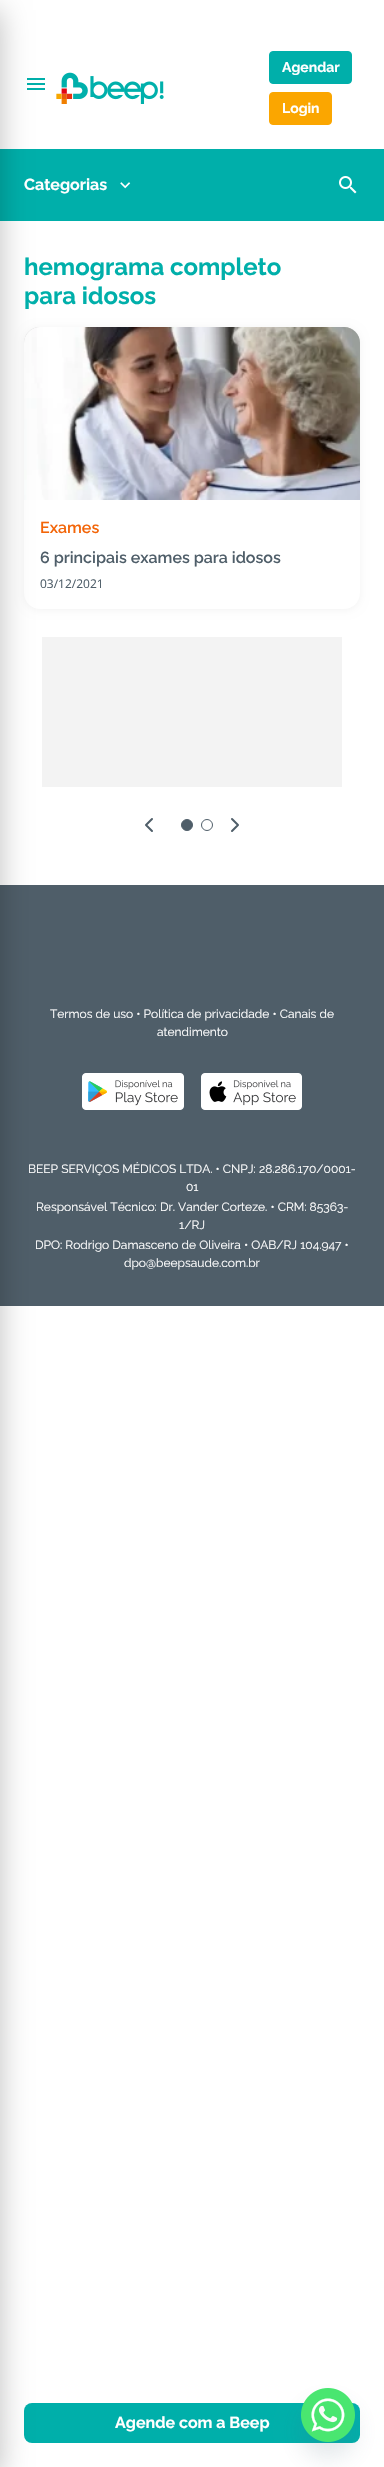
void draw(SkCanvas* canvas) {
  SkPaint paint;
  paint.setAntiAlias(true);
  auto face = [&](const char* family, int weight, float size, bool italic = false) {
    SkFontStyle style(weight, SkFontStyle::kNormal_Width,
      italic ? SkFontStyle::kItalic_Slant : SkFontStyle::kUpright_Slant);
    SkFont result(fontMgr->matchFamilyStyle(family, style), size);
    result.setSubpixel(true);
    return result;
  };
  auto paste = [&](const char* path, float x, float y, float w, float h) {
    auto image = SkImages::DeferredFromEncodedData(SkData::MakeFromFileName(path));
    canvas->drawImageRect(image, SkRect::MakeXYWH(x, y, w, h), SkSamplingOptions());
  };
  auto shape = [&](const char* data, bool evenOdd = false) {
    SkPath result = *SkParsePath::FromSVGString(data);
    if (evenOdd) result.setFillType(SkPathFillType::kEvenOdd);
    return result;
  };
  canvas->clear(0xffffffff);
  paste("img/1.png", 27, 78, 18, 12);
  paint.setColor(0xff00afaa);
  canvas->drawRect(SkRect::MakeXYWH(0, 149, 384, 72), paint);
  paint.setColor(0x0d000000);
  paint.setMaskFilter(SkMaskFilter::MakeBlur(kNormal_SkBlurStyle, 4));
  canvas->drawRoundRect(SkRect::MakeXYWH(24, 328, 336, 282), 16, 16, paint);
  paint.setMaskFilter(nullptr);
  paint.setColor(0xffd3d3d3);
  canvas->drawPath(shape("M40 327H344C353 327 360 334 360 343V500H24V343C24 334 31 327 40 327Z"), paint);
  paste("img/5.png", 24, 327, 336, 173);
  paint.setColor(0xffffffff);
  canvas->drawPath(shape("M24 500H360V593C360 602 353 609 344 609H40C31 609 24 602 24 593Z"), paint);
  paint.setColor(0xfff3f3f3);
  canvas->drawRect(SkRect::MakeXYWH(42, 637, 300, 150), paint);
  paint.setColor(0xff4f5e69);
  canvas->drawRect(SkRect::MakeXYWH(0, 885, 384, 421), paint);
  paint.setColor(0xff00afaa);
  canvas->drawRoundRect(SkRect::MakeXYWH(24, 2403, 336, 40), 8, 8, paint);
  paint.setColor(0x40000000);
  paint.setMaskFilter(SkMaskFilter::MakeBlur(kNormal_SkBlurStyle, 15));
  canvas->drawRect(SkRect::MakeXYWH(-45, 10, 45, 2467), paint);
  paint.setMaskFilter(nullptr);
  paste("img/2.png", 56, 72, 108, 32);
  paint.setColor(0xff00afaa);
  canvas->drawRoundRect(SkRect::MakeXYWH(269.5f, 51.5f, 82, 32), 3.5f, 3.5f, paint);
  paint.setStroke(true);
  paint.setStrokeWidth(1);
  canvas->drawRoundRect(SkRect::MakeXYWH(269.5f, 51.5f, 82, 32), 3.5f, 3.5f, paint);
  paint.setStroke(false);
  paint.setColor(0xfffba600);
  canvas->drawRoundRect(SkRect::MakeXYWH(269.5f, 92.5f, 62, 32), 3.5f, 3.5f, paint);
  paint.setStroke(true);
  canvas->drawRoundRect(SkRect::MakeXYWH(269.5f, 92.5f, 62, 32), 3.5f, 3.5f, paint);
  paste("img/3.png", 120, 182, 11, 7);
  paste("img/4.png", 339, 176, 18, 18);
  paint.setStrokeWidth(2);
  paint.setStrokeCap(SkPaint::kRound_Cap);
  paint.setStrokeJoin(SkPaint::kRound_Join);
  paint.setColor(0xff4f5e69);
  canvas->drawPath(shape("M152 831L146 825L152 819"), paint);
  paint.setStroke(false);
  canvas->drawCircle(187, 825, 5.5f, paint);
  paint.setStroke(true);
  paint.setStrokeWidth(1);
  paint.setStrokeCap(SkPaint::kButt_Cap);
  paint.setStrokeJoin(SkPaint::kMiter_Join);
  canvas->drawCircle(187, 825, 5.5f, paint);
  canvas->drawCircle(207, 825, 5.5f, paint);
  paint.setStrokeWidth(2);
  paint.setStrokeCap(SkPaint::kRound_Cap);
  paint.setStrokeJoin(SkPaint::kRound_Join);
  canvas->drawPath(shape("M232 831L238 825L232 819"), paint);
  paste("img/6.png", 82, 1073, 102, 37);
  paste("img/7.png", 201, 1073, 101, 37);
  paint.setStroke(false);
  paint.setColor(0x2949687e);
  paint.setMaskFilter(SkMaskFilter::MakeBlur(kNormal_SkBlurStyle, 12));
  canvas->drawRoundRect(SkRect::MakeXYWH(301, 2404, 54, 54), 27, 27, paint);
  paint.setMaskFilter(nullptr);
  paste("img/8.png", 301, 2388, 54, 54);
  auto f0 = face("Raleway", 700, 14);
  paint.setColor(0xffffffff);
  canvas->drawString("Agendar", 282, 72, f0, paint);
  canvas->drawString("Login", 282, 113, f0, paint);
  auto f1 = face("Raleway", 700, 16);
  canvas->drawString("Categorias", 24, 190, f1, paint);
  auto f2 = face("Raleway", 700, 24);
  paint.setColor(0xff00afaa);
  canvas->drawString("hemograma completo", 24, 275, f2, paint);
  canvas->drawString("para idosos", 24, 304, f2, paint);
  auto f3 = face("Raleway", 600, 16);
  paint.setColor(0xfff36508);
  canvas->drawString("Exames", 40, 533, f3, paint);
  paint.setColor(0xff4f5e69);
  canvas->drawString("6 principais exames para idosos", 40, 563, f3, paint);
  auto f4 = face("Open Sans", 400, 12);
  canvas->drawString("03/12/2021", 40, 588, f4, paint);
  auto f5 = face("Raleway", 400, 12);
  paint.setColor(0xffffffff);
  {
    const struct { const char* s; float x, y; } items[] = {
      {"Termos de uso • Política de privacidade • Canais de", 50, 1018},
      {"atendimento", 157, 1036},
      {"BEEP SERVIÇOS MÉDICOS LTDA. • CNPJ: 28.286.170/0001-", 28, 1173},
      {"01", 186, 1191},
      {"Responsável Técnico: Dr. Vander Corteze. • CRM: 85363-", 36, 1211},
      {"1/RJ", 179, 1229},
      {"DPO: Rodrigo Damasceno de Oliveira • OAB/RJ 104.947 •", 35, 1249},
      {"dpo@beepsaude.com.br", 124, 1267},
    };
    for (auto [s, x, y] : items) {
      canvas->drawString(s, x, y, f5, paint);
    }
  }
  canvas->drawString("Agende com a Beep", 115, 2428, f1, paint);
}
